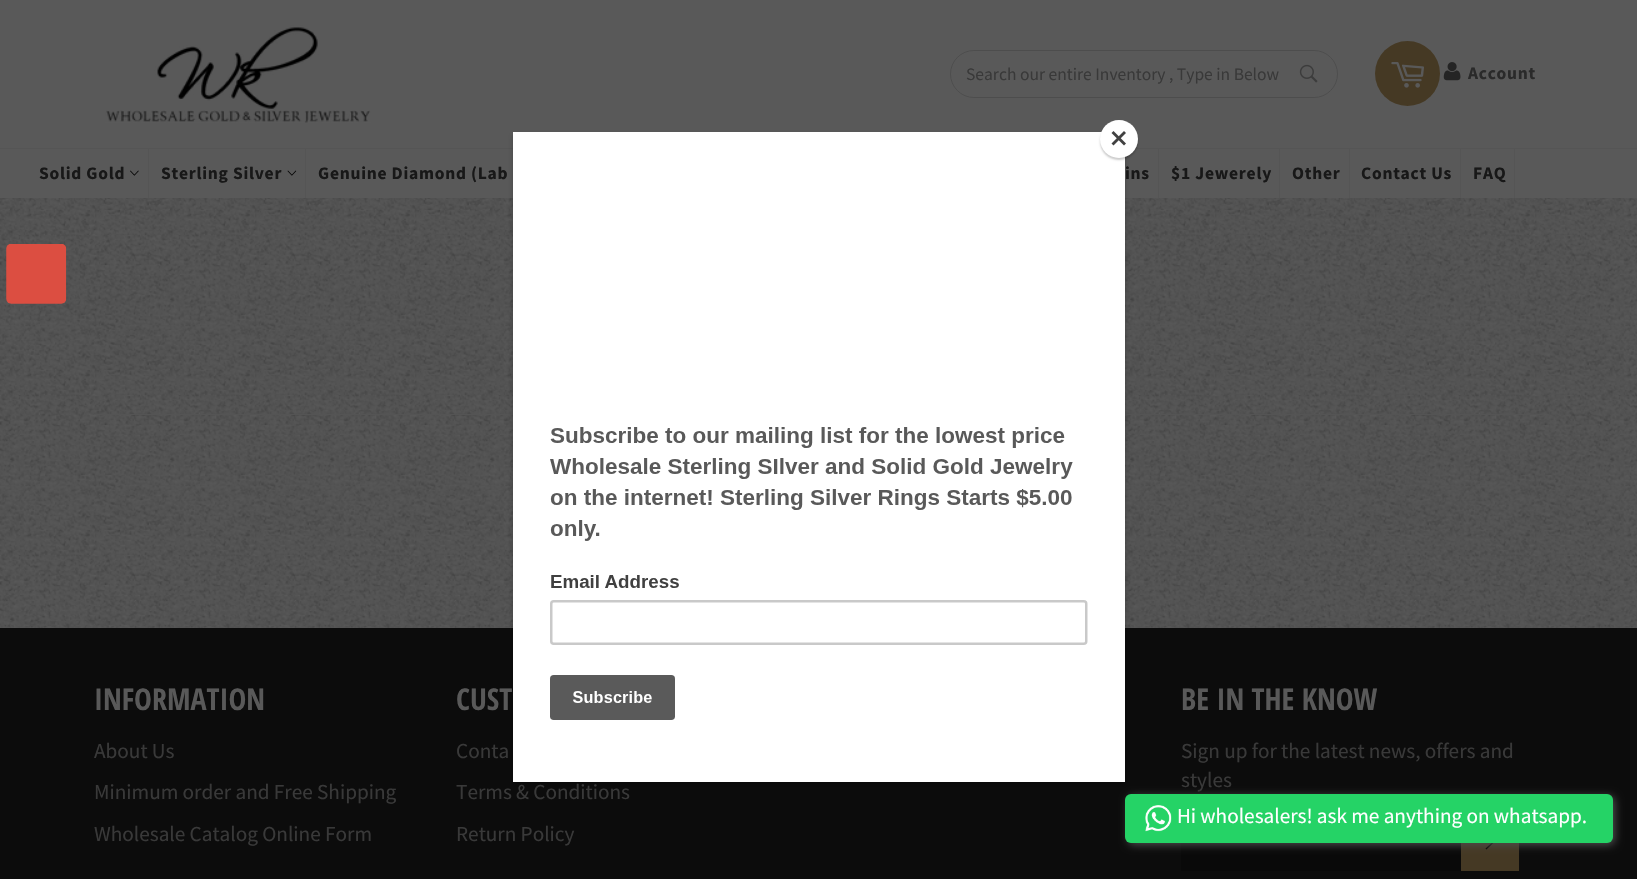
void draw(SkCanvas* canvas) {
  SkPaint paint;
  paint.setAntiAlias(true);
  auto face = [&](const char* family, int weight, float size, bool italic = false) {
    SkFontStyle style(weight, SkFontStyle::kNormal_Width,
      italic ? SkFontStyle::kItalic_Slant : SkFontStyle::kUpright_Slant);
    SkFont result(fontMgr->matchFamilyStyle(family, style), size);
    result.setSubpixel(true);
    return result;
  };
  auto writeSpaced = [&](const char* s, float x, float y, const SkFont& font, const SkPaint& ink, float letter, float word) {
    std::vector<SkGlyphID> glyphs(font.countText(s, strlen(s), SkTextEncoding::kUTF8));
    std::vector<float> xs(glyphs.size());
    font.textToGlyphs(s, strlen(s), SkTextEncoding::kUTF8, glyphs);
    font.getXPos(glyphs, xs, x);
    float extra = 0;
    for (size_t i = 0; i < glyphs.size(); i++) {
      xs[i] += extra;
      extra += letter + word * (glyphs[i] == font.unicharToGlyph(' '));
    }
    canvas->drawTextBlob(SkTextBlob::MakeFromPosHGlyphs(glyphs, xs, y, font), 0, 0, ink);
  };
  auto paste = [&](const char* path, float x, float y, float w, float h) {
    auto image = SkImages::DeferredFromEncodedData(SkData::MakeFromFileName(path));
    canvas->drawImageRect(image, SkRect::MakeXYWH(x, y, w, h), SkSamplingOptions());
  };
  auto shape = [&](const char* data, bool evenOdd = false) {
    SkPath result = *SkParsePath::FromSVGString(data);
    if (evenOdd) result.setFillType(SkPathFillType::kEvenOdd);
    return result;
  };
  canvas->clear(0xff595959);
  paste("img/1.png", 105, 25, 266, 98);
  paint.setStroke(true);
  paint.setStrokeWidth(1);
  paint.setColor(0xff4d4d4d);
  canvas->drawRoundRect(SkRect::MakeXYWH(950.5f, 50.5f, 387, 47), 23.5f, 23.5f, paint);
  paste("img/2.png", 1299, 64, 19, 19);
  paint.setStroke(false);
  paint.setColor(0xff453924);
  canvas->drawCircle(1407.5f, 73.5f, 32.5f, paint);
  paste("img/3.png", 1391, 62, 33, 26);
  paste("img/4.png", 1443, 62, 18, 19);
  paint.setColor(0xff555555);
  canvas->drawRect(SkRect::MakeXYWH(0, 148, 1637, 1), paint);
  canvas->drawRect(SkRect::MakeXYWH(148, 149, 1, 49), paint);
  paste("img/5.png", 130, 170, 9, 6);
  canvas->drawRect(SkRect::MakeXYWH(305, 149, 1, 49), paint);
  paste("img/6.png", 287, 170, 10, 6);
  {
    const struct { float x, y, w, h; SkColor color; } items[] = {
      {1158, 149, 1, 49, 0xff555555},
      {1279, 149, 1, 49, 0xff555555},
      {1349, 149, 1, 49, 0xff555555},
      {1460, 149, 1, 49, 0xff555555},
      {1514, 149, 1, 49, 0xff555555},
    };
    for (auto [x, y, w, h, color] : items) {
      paint.setColor(color);
      canvas->drawRect(SkRect::MakeXYWH(x, y, w, h), paint);
    }
  }
  paste("img/9.png", 0, 198, 1637, 430);
  paste("img/7.png", 6, 244, 61, 60);
  paint.setColor(0xff545454);
  canvas->drawRect(SkRect::MakeXYWH(94, 414, 1450, 1), paint);
  paint.setColor(0xff0c0c0c);
  canvas->drawRect(SkRect::MakeXYWH(0, 628, 1637, 251), paint);
  paint.setColor(0x33000000);
  paint.setMaskFilter(SkMaskFilter::MakeBlur(kNormal_SkBlurStyle, 2.5f));
  canvas->drawRect(SkRect::MakeXYWH(513, 135, 612, 650), paint);
  paint.setMaskFilter(nullptr);
  paste("img/8.png", 513, 132, 612, 650);
  paint.setMaskFilter(SkMaskFilter::MakeBlur(kNormal_SkBlurStyle, 1));
  canvas->drawRoundRect(SkRect::MakeXYWH(1100, 123, 38, 37), 18.5f, 18.5f, paint);
  paint.setMaskFilter(nullptr);
  paint.setColor(0xffffffff);
  canvas->drawCircle(1119, 139, 19, paint);
  paint.setColor(0xff414141);
  canvas->drawPath(shape("M1124 131L1126 133L1113.5 145.5L1111.5 143.5Z"), paint);
  canvas->drawPath(shape("M1111.5 133L1113.5 131L1126 143.5L1124 145.5Z"), paint);
  paint.setColor(0xff090909);
  canvas->drawRect(SkRect::MakeXYWH(1181, 843, 280, 28), paint);
  paint.setColor(0xff453924);
  canvas->drawRect(SkRect::MakeXYWH(1461, 843, 58, 28), paint);
  paste("img/10.png", 1485, 843, 9, 7);
  paint.setColor(0xff4d4d4d);
  paint.setMaskFilter(SkMaskFilter::MakeBlur(kNormal_SkBlurStyle, 4));
  canvas->drawRoundRect(SkRect::MakeXYWH(1128, 796, 487, 49), 6, 6, paint);
  paint.setMaskFilter(nullptr);
  paint.setColor(0xff25d366);
  canvas->drawRoundRect(SkRect::MakeXYWH(1125, 794, 488, 49), 6, 6, paint);
  paste("img/11.png", 1145, 805, 27, 27);
  auto f0 = face("Source Sans Pro", 400, 17.5f);
  paint.setColor(0xff393939);
  canvas->drawString("Search our entire Inventory , Type in Below", 966, 80, f0, paint);
  auto f1 = face("Source Sans Pro", 700, 17.5f);
  paint.setColor(0xff2a2a2a);
  writeSpaced("Account", 1468, 79, f1, paint, 0.75f, 0);
  paint.setColor(0xff181818);
  {
    const struct { const char* s; float x, y; } items[] = {
      {"Solid Gold", 39, 179},
      {"Sterling Silver", 161, 179},
      {"Genuine Diamond (Lab", 318, 179},
      {"ins", 1125, 179},
      {"$1 Jewerely", 1171, 179},
      {"Other", 1292, 179},
      {"Contact Us", 1361, 179},
      {"FAQ", 1473, 179},
    };
    for (auto [s, x, y] : items) {
      writeSpaced(s, x, y, f1, paint, 0.75f, 0);
    }
  }
  auto f2 = face("Open Sans Condensed", 700, 30);
  paint.setColor(0xff595959);
  canvas->drawString("INFORMATION", 94, 710, f2, paint);
  auto f3 = face("Source Sans Pro", 400, 21.25f);
  paint.setColor(0xff393939);
  {
    const struct { const char* s; float x, y; } items[] = {
      {"About Us", 94, 758},
      {"Minimum order and Free Shipping", 94, 799},
      {"Wholesale Catalog Online Form", 94, 841},
    };
    for (auto [s, x, y] : items) {
      canvas->drawString(s, x, y, f3, paint);
    }
  }
  paint.setColor(0xff595959);
  canvas->drawString("CUST", 456, 710, f2, paint);
  paint.setColor(0xff393939);
  {
    const struct { const char* s; float x, y; } items[] = {
      {"Conta", 456, 758},
      {"Terms & Conditions", 456, 799},
      {"Return Policy", 456, 841},
    };
    for (auto [s, x, y] : items) {
      canvas->drawString(s, x, y, f3, paint);
    }
  }
  paint.setColor(0xff595959);
  canvas->drawString("BE IN THE KNOW", 1181, 710, f2, paint);
  paint.setColor(0xff393939);
  canvas->drawString("Sign up for the latest news, offers and", 1181, 758, f3, paint);
  canvas->drawString("styles", 1181, 787, f3, paint);
  paint.setColor(0xffffffff);
  canvas->drawString("Hi wholesalers! ask me anything on whatsapp.", 1177, 823, f3, paint);
}
